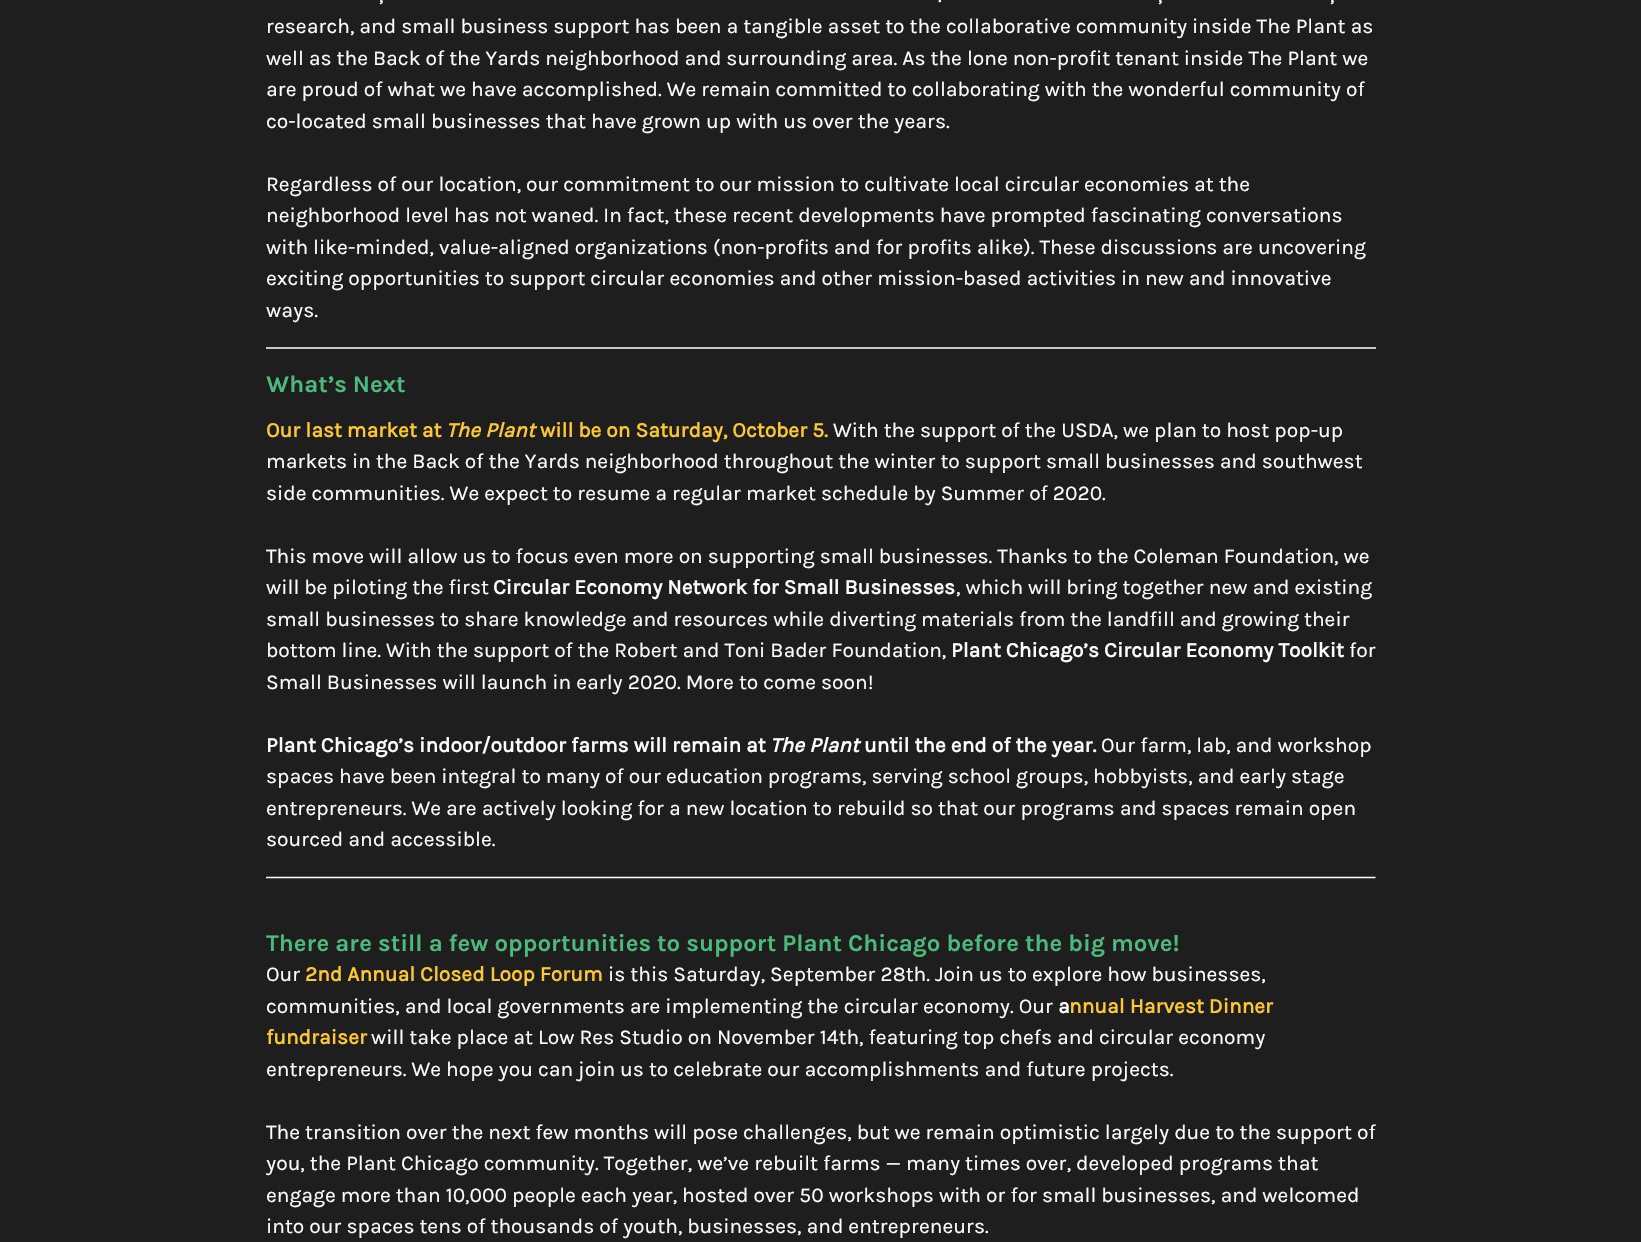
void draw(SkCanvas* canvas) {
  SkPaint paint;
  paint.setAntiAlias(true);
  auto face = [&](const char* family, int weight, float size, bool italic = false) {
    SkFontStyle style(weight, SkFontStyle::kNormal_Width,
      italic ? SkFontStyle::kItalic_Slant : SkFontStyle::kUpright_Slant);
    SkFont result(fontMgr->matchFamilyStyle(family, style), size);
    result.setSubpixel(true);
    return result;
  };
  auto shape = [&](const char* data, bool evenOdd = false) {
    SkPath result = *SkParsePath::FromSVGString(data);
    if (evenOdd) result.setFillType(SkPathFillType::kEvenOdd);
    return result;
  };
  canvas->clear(0xff1e1e1e);
  paint.setColor(0xffc7c7c7);
  canvas->drawRect(SkRect::MakeXYWH(266, 347, 1110, 2), paint);
  canvas->save();
  canvas->clipRect(SkRect::MakeXYWH(266, 876, 1110, 23));
  paint.setStroke(true);
  paint.setStrokeWidth(1.5f);
  paint.setColor(0xffffffff);
  canvas->drawPath(shape("M265.5 877.5H1375.5"), paint);
  canvas->restore();
  auto f0 = face("Karla", 400, 21);
  paint.setStroke(false);
  {
    const struct { const char* s; float x, y; } items[] = {
      {",", 379, 2},
      {".", 938, 2},
      {",", 1158, 2},
      {",", 1330, 2},
      {"research, and small business support has been a tangible asset to the collaborative community inside The Plant as", 266, 33},
      {"well as the Back of the Yards neighborhood and surrounding area. As the lone non-profit tenant inside The Plant we", 266, 65},
      {"are proud of what we have accomplished. We remain committed to collaborating with the wonderful community of", 266, 96},
      {"co-located small businesses that have grown up with us over the years.", 266, 128},
      {"Regardless of our location, our commitment to our mission to cultivate local circular economies at the", 266, 191},
      {"neighborhood level has not waned. In fact, these recent developments have prompted fascinating conversations", 266, 222},
      {"with like-minded, value-aligned organizations (non-profits and for profits alike). These discussions are uncovering", 266, 254},
      {"exciting opportunities to support circular economies and other mission-based activities in new and innovative", 266, 285},
      {"ways.", 266, 317},
    };
    for (auto [s, x, y] : items) {
      canvas->drawString(s, x, y, f0, paint);
    }
  }
  auto f1 = face("Karla", 700, 24);
  paint.setColor(0xff4cba7a);
  canvas->drawString("What’s Next", 266, 392, f1, paint);
  auto f2 = face("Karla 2", 700, 21);
  paint.setColor(0xffffc732);
  canvas->drawString("Our last market at", 266, 437, f2, paint);
  auto f3 = face("Karla", 700, 21, true);
  canvas->drawString("The Plant", 446, 437, f3, paint);
  canvas->drawString("will be on Saturday, October 5.", 540, 437, f2, paint);
  paint.setColor(0xffffffff);
  {
    const struct { const char* s; float x, y; } items[] = {
      {"With the support of the USDA, we plan to host pop-up", 833, 437},
      {"markets in the Back of the Yards neighborhood throughout the winter to support small businesses and southwest", 266, 468},
      {"side communities. We expect to resume a regular market schedule by Summer of 2020.", 266, 500},
      {"This move will allow us to focus even more on supporting small businesses. Thanks to the Coleman Foundation, we", 266, 563},
      {"will be piloting the first", 266, 594},
    };
    for (auto [s, x, y] : items) {
      canvas->drawString(s, x, y, f0, paint);
    }
  }
  canvas->drawString("Circular Economy Network for Small Businesses", 493, 594, f2, paint);
  {
    const struct { const char* s; float x, y; } items[] = {
      {", which will bring together new and existing", 956, 594},
      {"small businesses to share knowledge and resources while diverting materials from the landfill and growing their", 266, 626},
      {"bottom line. With the support of the Robert and Toni Bader Foundation,", 266, 657},
    };
    for (auto [s, x, y] : items) {
      canvas->drawString(s, x, y, f0, paint);
    }
  }
  canvas->drawString("Plant Chicago’s Circular Economy Toolkit", 951, 657, f2, paint);
  canvas->drawString("for", 1349, 657, f0, paint);
  canvas->drawString("Small Businesses will launch in early 2020. More to come soon!", 266, 689, f0, paint);
  canvas->drawString("Plant Chicago’s indoor/outdoor farms will remain at", 266, 752, f2, paint);
  canvas->drawString("The Plant", 770, 752, f3, paint);
  canvas->drawString("until the end of the year.", 864, 752, f2, paint);
  {
    const struct { const char* s; float x, y; } items[] = {
      {"Our farm, lab, and workshop", 1101, 752},
      {"spaces have been integral to many of our education programs, serving school groups, hobbyists, and early stage", 266, 783},
      {"entrepreneurs. We are actively looking for a new location to rebuild so that our programs and spaces remain open", 266, 815},
      {"sourced and accessible.", 266, 846},
    };
    for (auto [s, x, y] : items) {
      canvas->drawString(s, x, y, f0, paint);
    }
  }
  paint.setColor(0xff4cba7a);
  canvas->drawString("There are still a few opportunities to support Plant Chicago before the big move!", 266, 951, f1, paint);
  paint.setColor(0xffffffff);
  canvas->drawString("Our", 266, 981, f0, paint);
  paint.setColor(0xffffc732);
  canvas->drawString("2nd Annual Closed Loop Forum", 305, 981, f2, paint);
  paint.setColor(0xffffffff);
  canvas->drawString("is this Saturday, September 28th. Join us to explore how businesses,", 608, 981, f0, paint);
  canvas->drawString("communities, and local governments are implementing the circular economy. Our", 266, 1013, f0, paint);
  canvas->drawString("a", 1058, 1013, f2, paint);
  paint.setColor(0xffffc732);
  canvas->drawString("nnual Harvest Dinner", 1069, 1013, f2, paint);
  canvas->drawString("fundraiser", 266, 1044, f2, paint);
  paint.setColor(0xffffffff);
  {
    const struct { const char* s; float x, y; } items[] = {
      {"will take place at Low Res Studio on November 14th, featuring top chefs and circular economy", 371, 1044},
      {"entrepreneurs. We hope you can join us to celebrate our accomplishments and future projects.", 266, 1076},
      {"The transition over the next few months will pose challenges, but we remain optimistic largely due to the support of", 266, 1139},
      {"you, the Plant Chicago community. Together, we’ve rebuilt farms — many times over, developed programs that", 266, 1170},
      {"engage more than 10,000 people each year, hosted over 50 workshops with or for small businesses, and welcomed", 266, 1202},
      {"into our spaces tens of thousands of youth, businesses, and entrepreneurs.", 266, 1233},
    };
    for (auto [s, x, y] : items) {
      canvas->drawString(s, x, y, f0, paint);
    }
  }
}
